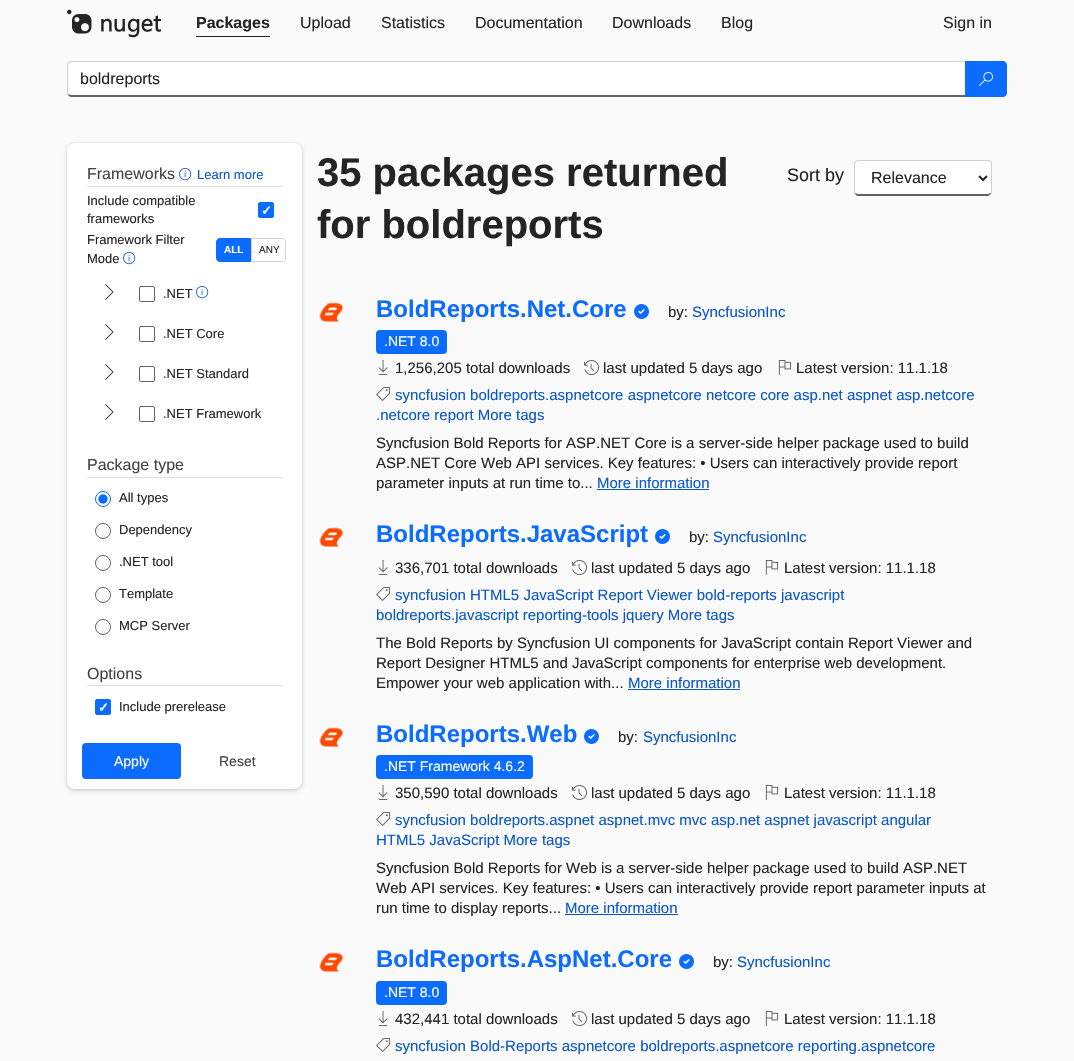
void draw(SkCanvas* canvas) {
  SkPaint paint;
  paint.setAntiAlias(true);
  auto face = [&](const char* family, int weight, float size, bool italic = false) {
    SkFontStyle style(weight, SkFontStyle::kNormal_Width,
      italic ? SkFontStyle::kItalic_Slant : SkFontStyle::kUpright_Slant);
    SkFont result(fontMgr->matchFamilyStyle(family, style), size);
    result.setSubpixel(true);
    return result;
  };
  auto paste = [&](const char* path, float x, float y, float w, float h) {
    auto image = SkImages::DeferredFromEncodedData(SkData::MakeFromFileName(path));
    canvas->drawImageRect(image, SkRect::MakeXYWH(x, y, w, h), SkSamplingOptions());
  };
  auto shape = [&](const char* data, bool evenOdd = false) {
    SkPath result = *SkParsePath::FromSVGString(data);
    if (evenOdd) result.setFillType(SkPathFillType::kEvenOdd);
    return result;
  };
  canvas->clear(0xfffafafa);
  paste("img/1.png", 67, 9, 94, 29);
  paint.setColor(0xff242424);
  canvas->drawRect(SkRect::MakeXYWH(196, 36, 74, 1), paint);
  paint.setColor(0xffffffff);
  canvas->drawPath(shape("M71 62H965V95H71C69 95 68 94 68 93V65C68 63 69 62 71 62Z"), paint);
  paint.setColor(0xffd1d1d1);
  canvas->drawPath(shape("M71 61L68 62L69 63L71 62H965L966 61Z"), paint);
  paint.setColor(0xff616161);
  canvas->drawPath(shape("M966 97L965 95H71L68 94V95C69 96 70 97 71 97Z"), paint);
  paint.setColor(0xffd1d1d1);
  canvas->drawPath(shape("M67 65V93C67 94 67.5 94.5 68 95.5L68.5 94L68 93V64.5L69 63L68 62C67.5 63 67 64 67 65Z"), paint);
  paint.setColor(0xff0b6cff);
  canvas->drawPath(shape("M965 61H1003C1005 61 1007 63 1007 65V93C1007 95 1005 97 1003 97H965Z"), paint);
  paste("img/2.png", 979, 72, 14, 14);
  paint.setColor(0x24000000);
  paint.setMaskFilter(SkMaskFilter::MakeBlur(kNormal_SkBlurStyle, 2));
  canvas->drawRoundRect(SkRect::MakeXYWH(67, 145, 235, 646), 8, 8, paint);
  paint.setMaskFilter(nullptr);
  paint.setColor(0x1f000000);
  paint.setMaskFilter(SkMaskFilter::MakeBlur(kNormal_SkBlurStyle, 1));
  canvas->drawRoundRect(SkRect::MakeXYWH(67, 143, 235, 646), 8, 8, paint);
  paint.setMaskFilter(nullptr);
  paint.setColor(0xffffffff);
  canvas->drawRoundRect(SkRect::MakeXYWH(67, 143, 235, 646), 8, 8, paint);
  paint.setColor(0xffe0e0e0);
  canvas->drawRect(SkRect::MakeXYWH(87, 186, 195, 1), paint);
  paste("img/3.png", 179, 168, 13, 13);
  paint.setColor(0xff0b6cff);
  canvas->drawRoundRect(SkRect::MakeXYWH(258.5f, 202.5f, 15, 15), 1.5f, 1.5f, paint);
  paint.setStroke(true);
  paint.setStrokeWidth(1);
  canvas->drawRoundRect(SkRect::MakeXYWH(258.5f, 202.5f, 15, 15), 1.5f, 1.5f, paint);
  paste("img/3.png", 123, 252, 13, 13);
  paint.setStroke(false);
  canvas->drawPath(shape("M220 238.5H250.5V261.5H220C218 261.5 216.5 260 216.5 258V242C216.5 240 218 238.5 220 238.5Z"), paint);
  paint.setStroke(true);
  canvas->drawPath(shape("M220 238.5H250.5V261.5H220C218 261.5 216.5 260 216.5 258V242C216.5 240 218 238.5 220 238.5Z"), paint);
  paint.setColor(0xffd1d1d1);
  canvas->drawPath(shape("M251.5 238.5H282C284 238.5 285.5 240 285.5 242V258C285.5 260 284 261.5 282 261.5H251.5Z"), paint);
  paste("img/4.png", 105, 284, 9, 16);
  paint.setColor(0xff616161);
  canvas->drawRoundRect(SkRect::MakeXYWH(139.5f, 286.5f, 15, 15), 1.5f, 1.5f, paint);
  paste("img/3.png", 196, 286, 13, 13);
  paste("img/4.png", 105, 324, 9, 16);
  canvas->drawRoundRect(SkRect::MakeXYWH(139.5f, 326.5f, 15, 15), 1.5f, 1.5f, paint);
  paste("img/4.png", 105, 364, 9, 16);
  canvas->drawRoundRect(SkRect::MakeXYWH(139.5f, 366.5f, 15, 15), 1.5f, 1.5f, paint);
  paste("img/4.png", 105, 404, 9, 16);
  canvas->drawRoundRect(SkRect::MakeXYWH(139.5f, 406.5f, 15, 15), 1.5f, 1.5f, paint);
  paint.setStroke(false);
  paint.setColor(0xffe0e0e0);
  canvas->drawRect(SkRect::MakeXYWH(87, 477, 195, 1), paint);
  paint.setStroke(true);
  paint.setStrokeWidth(9.4f);
  paint.setStrokeCap(SkPaint::kRound_Cap);
  paint.setColor(0xff0b6cff);
  paint.setPathEffect(SkDashPathEffect::Make({{0, 14}}, 0));
  canvas->drawPath(shape("M103 499H103.2"), paint);
  paint.setPathEffect(nullptr);
  paint.setStrokeWidth(1);
  paint.setStrokeCap(SkPaint::kButt_Cap);
  canvas->drawCircle(103, 499, 7.5f, paint);
  paint.setColor(0xff616161);
  canvas->drawCircle(103, 531, 7.5f, paint);
  canvas->drawCircle(103, 563, 7.5f, paint);
  canvas->drawCircle(103, 595, 7.5f, paint);
  canvas->drawCircle(103, 627, 7.5f, paint);
  paint.setStroke(false);
  paint.setColor(0xffe0e0e0);
  canvas->drawRect(SkRect::MakeXYWH(87, 685, 195, 1), paint);
  paint.setColor(0xff0b6cff);
  canvas->drawRoundRect(SkRect::MakeXYWH(95.5f, 699.5f, 15, 15), 1.5f, 1.5f, paint);
  paint.setStroke(true);
  canvas->drawRoundRect(SkRect::MakeXYWH(95.5f, 699.5f, 15, 15), 1.5f, 1.5f, paint);
  paint.setStroke(false);
  canvas->drawRoundRect(SkRect::MakeXYWH(82, 743, 99, 36), 4, 4, paint);
  paint.setColor(0xffffffff);
  canvas->drawPath(shape("M858 161H988C990 161 991 162 991 164V192C991 193 990 194 988 194H858C856 194 855 193 855 192V164C855 162 856 161 858 161Z"), paint);
  paint.setColor(0xffd1d1d1);
  canvas->drawPath(shape("M858 160L855 161L856 162L858 161H988L990 162L991 161L988 160Z"), paint);
  canvas->drawPath(shape("M992 192V164C992 163 991.5 162 991 161L990 162L991 163.5V192L990.5 193L991 194.5C991.5 193.5 992 193 992 192Z"), paint);
  paint.setColor(0xff616161);
  canvas->drawPath(shape("M858 196H988L991 194V193L988 194H858L855 193V194C856 195 857 196 858 196Z"), paint);
  paint.setColor(0xffd1d1d1);
  canvas->drawPath(shape("M854 164V192C854 193 854.5 193.5 855 194.5L855.5 193L855 192V163.5L856 162L855 161C854.5 162 854 163 854 164Z"), paint);
  paint.setStroke(true);
  paint.setStrokeWidth(2);
  paint.setColor(0xff242424);
  canvas->drawPath(shape("M979 176L983 180L987 176"), paint);
  paste("img/5.png", 319, 302, 25, 20);
  paste("img/6.png", 634, 304, 15, 15);
  paint.setStroke(false);
  paint.setColor(0xff0b6cff);
  canvas->drawRoundRect(SkRect::MakeXYWH(376, 330, 71, 24), 4, 4, paint);
  paste("img/7.png", 378, 360, 10, 15);
  paste("img/8.png", 584, 360, 15, 15);
  paste("img/9.png", 778, 360, 14, 15);
  paste("img/10.png", 376, 387, 15, 14);
  paint.setColor(0xff0956cc);
  canvas->drawRect(SkRect::MakeXYWH(597, 489, 112, 1), paint);
  paste("img/5.png", 319, 527, 25, 20);
  paste("img/6.png", 655, 529, 15, 15);
  paste("img/7.png", 378, 560, 10, 15);
  paste("img/8.png", 572, 560, 15, 15);
  paste("img/9.png", 765, 560, 14, 15);
  paste("img/10.png", 376, 587, 15, 14);
  canvas->drawRect(SkRect::MakeXYWH(628, 689, 112, 1), paint);
  paste("img/5.png", 319, 727, 25, 20);
  paste("img/6.png", 584, 729, 15, 15);
  paint.setColor(0xff0b6cff);
  canvas->drawRoundRect(SkRect::MakeXYWH(376, 755, 157, 24), 4, 4, paint);
  paste("img/7.png", 378, 785, 10, 15);
  paste("img/8.png", 572, 785, 15, 15);
  paste("img/9.png", 765, 785, 14, 15);
  paste("img/10.png", 376, 812, 15, 14);
  paint.setColor(0xff0956cc);
  canvas->drawRect(SkRect::MakeXYWH(565, 914, 113, 1), paint);
  paste("img/5.png", 319, 952, 25, 20);
  paste("img/6.png", 679, 954, 15, 15);
  paint.setColor(0xff0b6cff);
  canvas->drawRoundRect(SkRect::MakeXYWH(376, 981, 71, 24), 4, 4, paint);
  paste("img/7.png", 378, 1011, 10, 15);
  paste("img/8.png", 572, 1011, 15, 15);
  paste("img/9.png", 765, 1011, 14, 15);
  paste("img/10.png", 376, 1038, 15, 14);
  auto f0 = face("Liberation Sans", 700, 16);
  paint.setColor(0xff242424);
  canvas->drawString("Packages", 196, 28, f0, paint);
  auto f1 = face("Liberation Sans", 400, 16);
  {
    const struct { const char* s; float x, y; } items[] = {
      {"Upload", 300, 28},
      {"Statistics", 381, 28},
      {"Documentation", 475, 28},
      {"Downloads", 612, 28},
      {"Blog", 721, 28},
      {"Sign in", 943, 28},
      {"boldreports", 80, 84},
    };
    for (auto [s, x, y] : items) {
      canvas->drawString(s, x, y, f1, paint);
    }
  }
  paint.setColor(0xff424242);
  canvas->drawString("Frameworks", 87, 179, f1, paint);
  auto f2 = face("Liberation Sans", 400, 13);
  paint.setColor(0xff0956cc);
  canvas->drawString("Learn more", 197, 179, f2, paint);
  paint.setColor(0xff242424);
  canvas->drawString("Include compatible", 87, 205, f2, paint);
  canvas->drawString("frameworks", 87, 223, f2, paint);
  auto f3 = face("DejaVu Sans", 700, 13);
  paint.setColor(0xffffffff);
  canvas->drawString("✓", 261, 215, f3, paint);
  paint.setColor(0xff242424);
  canvas->drawString("Framework Filter", 87, 244, f2, paint);
  canvas->drawString("Mode", 87, 263, f2, paint);
  auto f4 = face("Liberation Sans", 700, 10);
  paint.setColor(0xffffffff);
  canvas->drawString("ALL", 224, 253, f4, paint);
  auto f5 = face("Liberation Sans", 400, 10);
  paint.setColor(0xff242424);
  canvas->drawString("ANY", 259, 253, f5, paint);
  {
    const struct { const char* s; float x, y; } items[] = {
      {".NET", 163, 298},
      {".NET Core", 163, 338},
      {".NET Standard", 163, 378},
      {".NET Framework", 163, 418},
    };
    for (auto [s, x, y] : items) {
      canvas->drawString(s, x, y, f2, paint);
    }
  }
  paint.setColor(0xff424242);
  canvas->drawString("Package type", 87, 470, f1, paint);
  paint.setColor(0xff242424);
  {
    const struct { const char* s; float x, y; } items[] = {
      {"All types", 119, 502},
      {"Dependency", 119, 534},
      {".NET tool", 119, 566},
      {"Template", 119, 598},
      {"MCP Server", 119, 630},
    };
    for (auto [s, x, y] : items) {
      canvas->drawString(s, x, y, f2, paint);
    }
  }
  paint.setColor(0xff424242);
  canvas->drawString("Options", 87, 679, f1, paint);
  paint.setColor(0xffffffff);
  canvas->drawString("✓", 98, 712, f3, paint);
  paint.setColor(0xff242424);
  canvas->drawString("Include prerelease", 119, 711, f2, paint);
  auto f6 = face("Liberation Sans", 400, 14);
  paint.setColor(0xffffffff);
  canvas->drawString("Apply", 114, 766, f6, paint);
  paint.setColor(0xff424242);
  canvas->drawString("Reset", 219, 766, f6, paint);
  auto f7 = face("Liberation Sans", 700, 40);
  paint.setColor(0xff242424);
  canvas->drawString("35 packages returned", 317, 186, f7, paint);
  canvas->drawString("for boldreports", 317, 238, f7, paint);
  auto f8 = face("Liberation Sans", 400, 18);
  canvas->drawString("Sort by", 787, 181, f8, paint);
  canvas->drawString("Relevance", 871, 183, f1, paint);
  auto f9 = face("Liberation Sans", 700, 24);
  paint.setColor(0xff0b6cff);
  canvas->drawString("BoldReports.Net.Core", 376, 317, f9, paint);
  auto f10 = face("Liberation Sans", 400, 15);
  paint.setColor(0xff242424);
  canvas->drawString("by:", 668, 317, f10, paint);
  paint.setColor(0xff0956cc);
  canvas->drawString("SyncfusionInc", 692, 317, f10, paint);
  paint.setColor(0xffffffff);
  canvas->drawString(".NET 8.0", 384, 346, f6, paint);
  paint.setColor(0xff242424);
  {
    const struct { const char* s; float x, y; } items[] = {
      {"1,256,205 total downloads", 395, 373},
      {"last updated 5 days ago", 603, 373},
      {"Latest version: 11.1.18", 796, 373},
    };
    for (auto [s, x, y] : items) {
      canvas->drawString(s, x, y, f10, paint);
    }
  }
  paint.setColor(0xff0956cc);
  canvas->drawString("syncfusion boldreports.aspnetcore aspnetcore netcore core asp.net aspnet asp.netcore", 395, 400, f10, paint);
  canvas->drawString(".netcore report More tags", 376, 420, f10, paint);
  paint.setColor(0xff242424);
  {
    const struct { const char* s; float x, y; } items[] = {
      {"Syncfusion Bold Reports for ASP.NET Core is a server-side helper package used to build", 376, 448},
      {"ASP.NET Core Web API services. Key features: • Users can interactively provide report", 376, 468},
      {"parameter inputs at run time to...", 376, 488},
    };
    for (auto [s, x, y] : items) {
      canvas->drawString(s, x, y, f10, paint);
    }
  }
  paint.setColor(0xff0956cc);
  canvas->drawString("More information", 597, 488, f10, paint);
  paint.setColor(0xff0b6cff);
  canvas->drawString("BoldReports.JavaScript", 376, 542, f9, paint);
  paint.setColor(0xff242424);
  canvas->drawString("by:", 689, 542, f10, paint);
  paint.setColor(0xff0956cc);
  canvas->drawString("SyncfusionInc", 713, 542, f10, paint);
  paint.setColor(0xff242424);
  {
    const struct { const char* s; float x, y; } items[] = {
      {"336,701 total downloads", 395, 573},
      {"last updated 5 days ago", 591, 573},
      {"Latest version: 11.1.18", 784, 573},
    };
    for (auto [s, x, y] : items) {
      canvas->drawString(s, x, y, f10, paint);
    }
  }
  paint.setColor(0xff0956cc);
  canvas->drawString("syncfusion HTML5 JavaScript Report Viewer bold-reports javascript", 395, 600, f10, paint);
  canvas->drawString("boldreports.javascript reporting-tools jquery More tags", 376, 620, f10, paint);
  paint.setColor(0xff242424);
  {
    const struct { const char* s; float x, y; } items[] = {
      {"The Bold Reports by Syncfusion UI components for JavaScript contain Report Viewer and", 376, 648},
      {"Report Designer HTML5 and JavaScript components for enterprise web development.", 376, 668},
      {"Empower your web application with...", 376, 688},
    };
    for (auto [s, x, y] : items) {
      canvas->drawString(s, x, y, f10, paint);
    }
  }
  paint.setColor(0xff0956cc);
  canvas->drawString("More information", 628, 688, f10, paint);
  paint.setColor(0xff0b6cff);
  canvas->drawString("BoldReports.Web", 376, 742, f9, paint);
  paint.setColor(0xff242424);
  canvas->drawString("by:", 618, 742, f10, paint);
  paint.setColor(0xff0956cc);
  canvas->drawString("SyncfusionInc", 643, 742, f10, paint);
  paint.setColor(0xffffffff);
  canvas->drawString(".NET Framework 4.6.2", 384, 771, f6, paint);
  paint.setColor(0xff242424);
  {
    const struct { const char* s; float x, y; } items[] = {
      {"350,590 total downloads", 395, 798},
      {"last updated 5 days ago", 591, 798},
      {"Latest version: 11.1.18", 784, 798},
    };
    for (auto [s, x, y] : items) {
      canvas->drawString(s, x, y, f10, paint);
    }
  }
  paint.setColor(0xff0956cc);
  canvas->drawString("syncfusion boldreports.aspnet aspnet.mvc mvc asp.net aspnet javascript angular", 395, 825, f10, paint);
  canvas->drawString("HTML5 JavaScript More tags", 376, 845, f10, paint);
  paint.setColor(0xff242424);
  {
    const struct { const char* s; float x, y; } items[] = {
      {"Syncfusion Bold Reports for Web is a server-side helper package used to build ASP.NET", 376, 873},
      {"Web API services. Key features: • Users can interactively provide report parameter inputs at", 376, 893},
      {"run time to display reports...", 376, 913},
    };
    for (auto [s, x, y] : items) {
      canvas->drawString(s, x, y, f10, paint);
    }
  }
  paint.setColor(0xff0956cc);
  canvas->drawString("More information", 565, 913, f10, paint);
  paint.setColor(0xff0b6cff);
  canvas->drawString("BoldReports.AspNet.Core", 376, 967, f9, paint);
  paint.setColor(0xff242424);
  canvas->drawString("by:", 713, 967, f10, paint);
  paint.setColor(0xff0956cc);
  canvas->drawString("SyncfusionInc", 737, 967, f10, paint);
  paint.setColor(0xffffffff);
  canvas->drawString(".NET 8.0", 384, 997, f6, paint);
  paint.setColor(0xff242424);
  {
    const struct { const char* s; float x, y; } items[] = {
      {"432,441 total downloads", 395, 1024},
      {"last updated 5 days ago", 591, 1024},
      {"Latest version: 11.1.18", 784, 1024},
    };
    for (auto [s, x, y] : items) {
      canvas->drawString(s, x, y, f10, paint);
    }
  }
  paint.setColor(0xff0956cc);
  canvas->drawString("syncfusion Bold-Reports aspnetcore boldreports.aspnetcore reporting.aspnetcore", 395, 1051, f10, paint);
}
